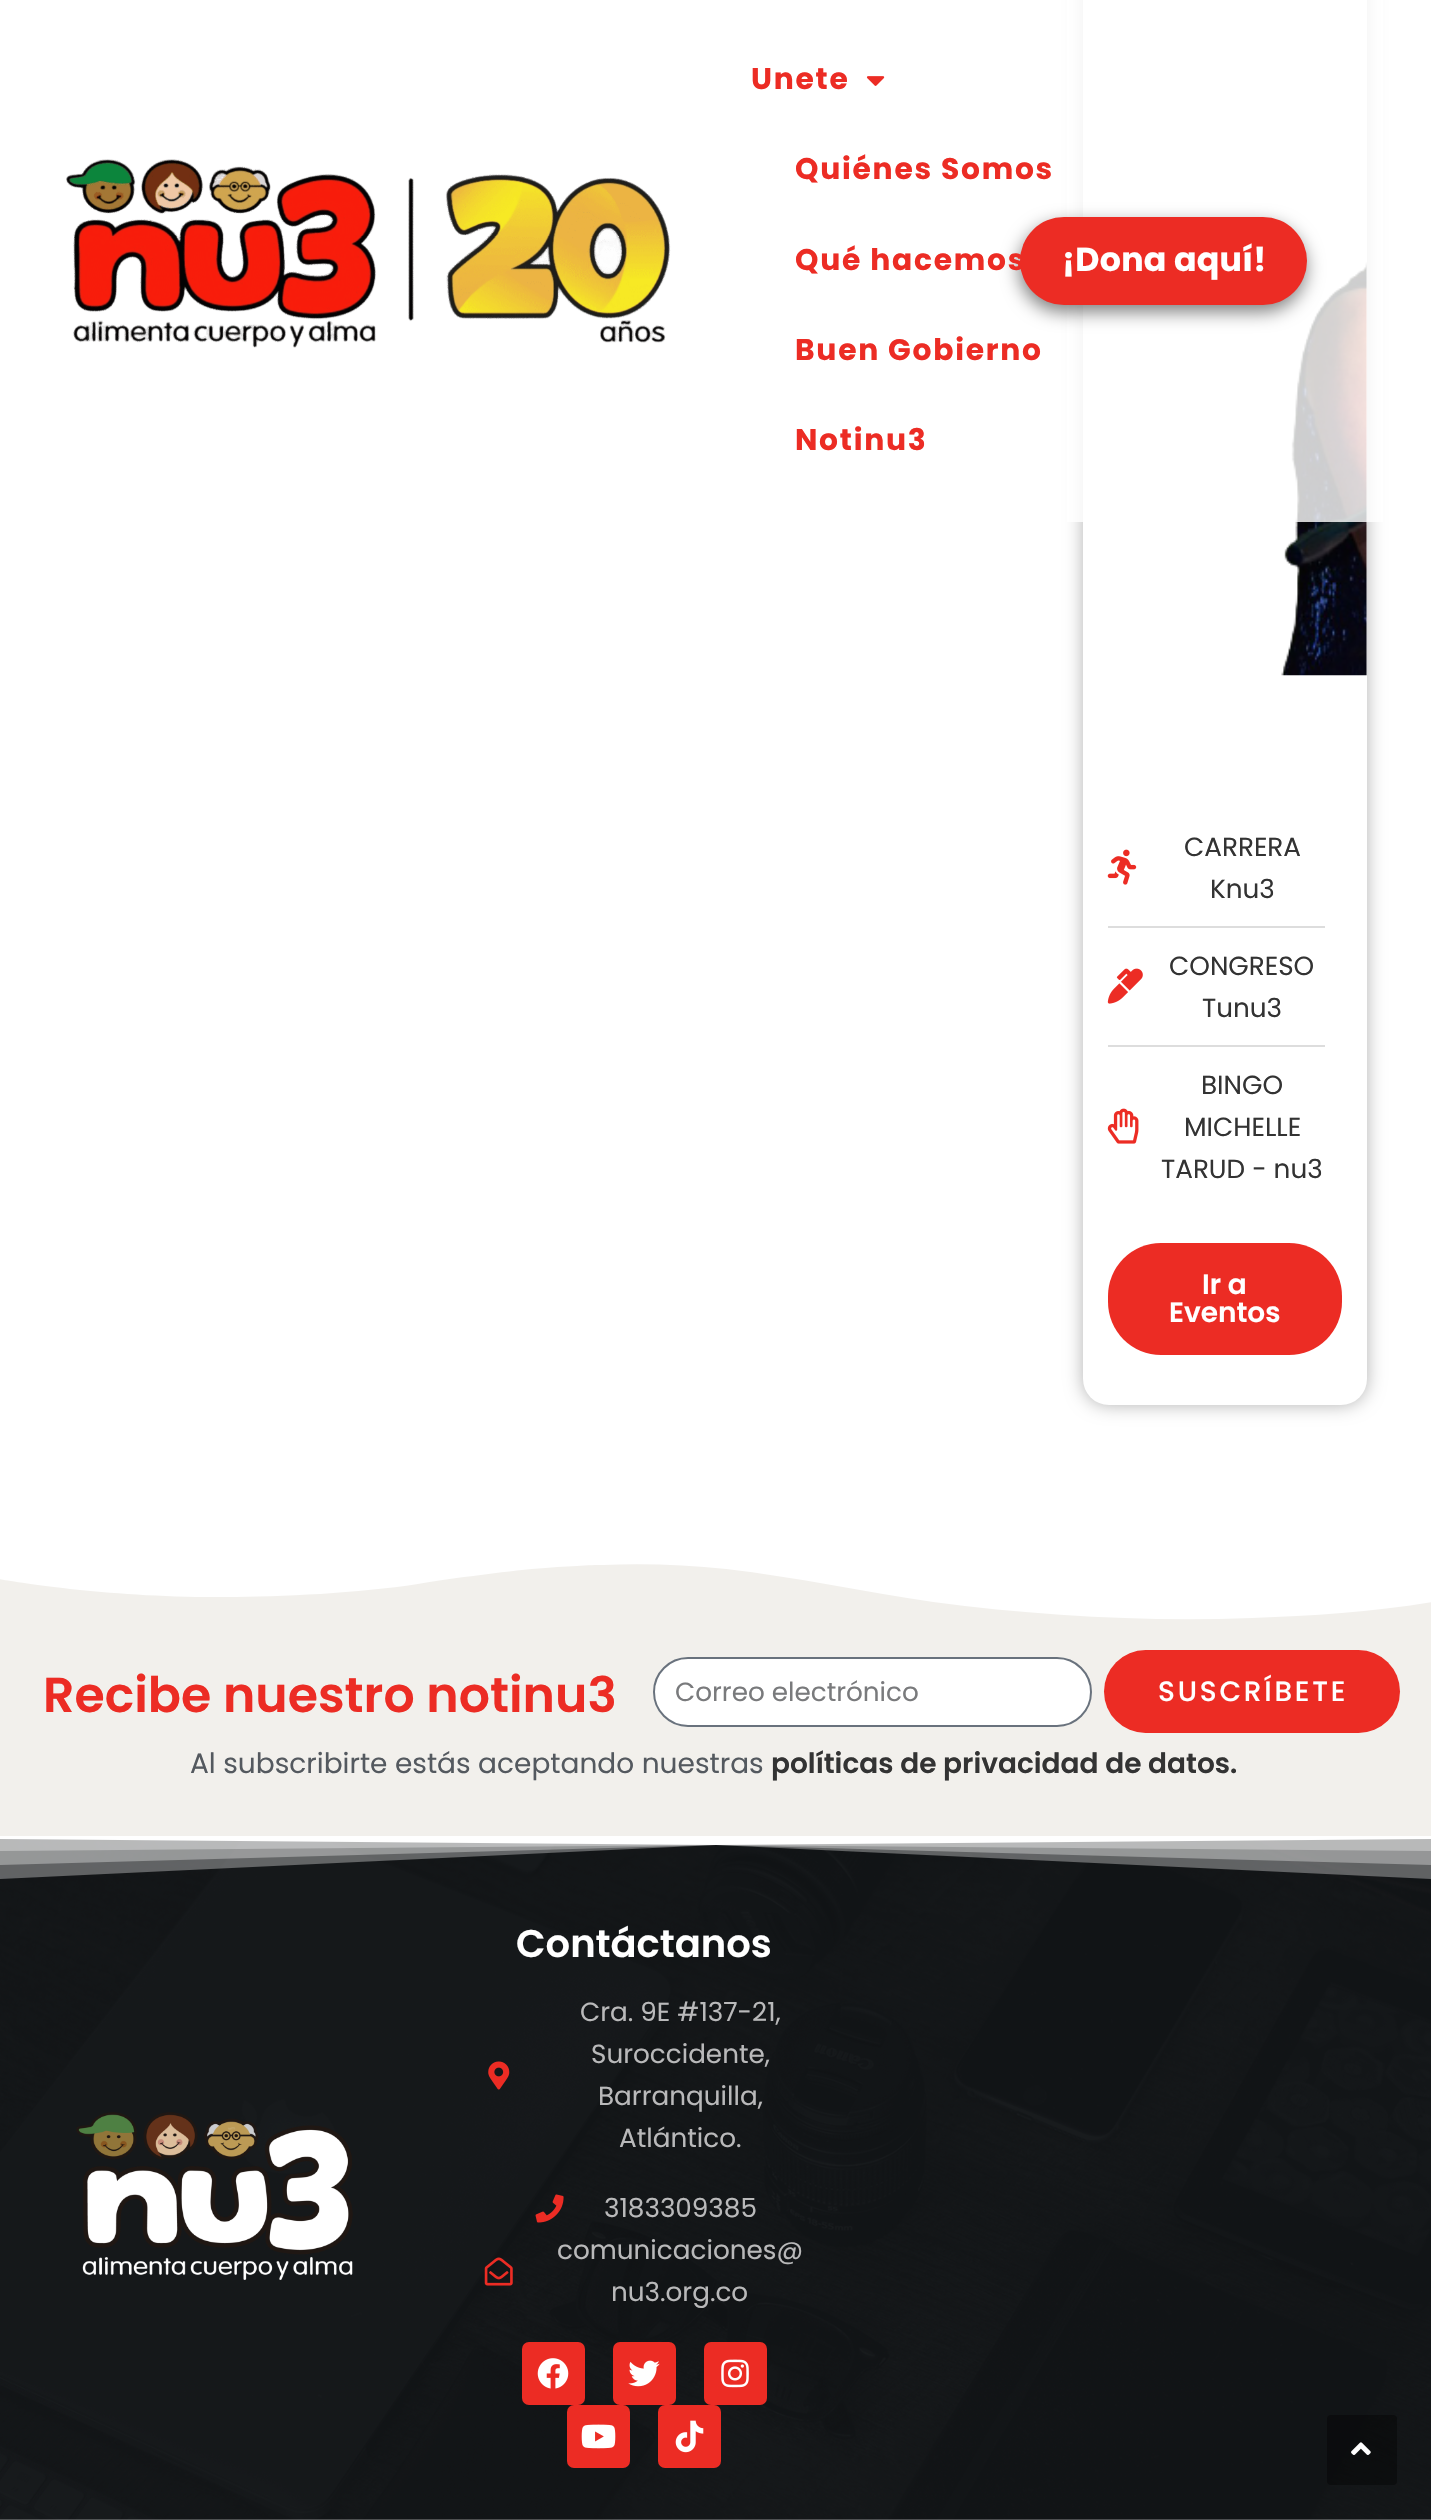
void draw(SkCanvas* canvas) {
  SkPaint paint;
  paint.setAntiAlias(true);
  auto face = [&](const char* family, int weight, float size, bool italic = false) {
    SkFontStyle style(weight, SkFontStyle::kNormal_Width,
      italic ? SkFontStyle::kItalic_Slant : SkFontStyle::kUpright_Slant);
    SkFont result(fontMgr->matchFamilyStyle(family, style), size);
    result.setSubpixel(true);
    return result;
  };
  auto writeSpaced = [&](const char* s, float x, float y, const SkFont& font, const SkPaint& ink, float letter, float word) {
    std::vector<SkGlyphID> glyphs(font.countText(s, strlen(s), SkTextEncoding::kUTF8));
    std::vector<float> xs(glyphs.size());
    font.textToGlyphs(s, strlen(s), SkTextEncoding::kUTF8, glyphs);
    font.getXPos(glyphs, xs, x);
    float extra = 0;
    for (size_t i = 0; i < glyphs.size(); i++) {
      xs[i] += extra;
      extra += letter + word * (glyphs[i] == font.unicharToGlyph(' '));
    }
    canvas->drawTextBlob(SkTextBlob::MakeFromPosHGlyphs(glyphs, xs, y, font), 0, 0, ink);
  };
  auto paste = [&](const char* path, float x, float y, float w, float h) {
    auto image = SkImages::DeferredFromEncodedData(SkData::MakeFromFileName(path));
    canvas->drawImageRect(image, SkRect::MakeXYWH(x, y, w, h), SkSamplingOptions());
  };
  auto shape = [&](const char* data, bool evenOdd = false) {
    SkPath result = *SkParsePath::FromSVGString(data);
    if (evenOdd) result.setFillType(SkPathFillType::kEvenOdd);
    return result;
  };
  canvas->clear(0xffffffff);
  paint.setColor(0x4d000000);
  paint.setMaskFilter(SkMaskFilter::MakeBlur(kNormal_SkBlurStyle, 9));
  canvas->drawRoundRect(SkRect::MakeXYWH(1083, -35, 284, 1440), 26, 26, paint);
  paint.setMaskFilter(nullptr);
  paint.setColor(0xffffffff);
  canvas->drawRoundRect(SkRect::MakeXYWH(1083, -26, 284, 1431), 26, 26, paint);
  paste("img/3.png", 1281, 262, 86, 414);
  paint.setColor(0xccffffff);
  canvas->drawRect(SkRect::MakeXYWH(1067, 0, 316, 522), paint);
  paste("img/1.png", 66, 159, 605, 189);
  paste("img/2.png", 866, 76, 19, 10);
  paint.setColor(0x80000000);
  paint.setMaskFilter(SkMaskFilter::MakeBlur(kNormal_SkBlurStyle, 9));
  canvas->drawRoundRect(SkRect::MakeXYWH(1019, 224, 287, 88), 44, 44, paint);
  paint.setMaskFilter(nullptr);
  paint.setColor(0xffec2c24);
  canvas->drawRoundRect(SkRect::MakeXYWH(1020, 217, 287, 88), 44, 44, paint);
  paste("img/4.png", 1107, 849, 30, 36);
  paint.setColor(0xffdddddd);
  canvas->drawRect(SkRect::MakeXYWH(1108, 926, 217, 2), paint);
  paste("img/5.png", 1107, 968, 36, 36);
  canvas->drawRect(SkRect::MakeXYWH(1108, 1045, 217, 2), paint);
  paste("img/6.png", 1107, 1108, 32, 36);
  paint.setColor(0xffec2c24);
  canvas->drawRoundRect(SkRect::MakeXYWH(1108, 1243, 234, 112), 53, 53, paint);
  paint.setColor(0xfff2f0ec);
  canvas->drawRect(SkRect::MakeXYWH(0, 1564, 1431, 272), paint);
  paint.setColor(0xffffffff);
  canvas->drawPath(shape("M604 1565C644 1563 686 1565 726 1569C796 1577 864 1592 933 1602C1039 1616 1146 1622 1253 1618C1313 1616 1373 1612 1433 1602V1561H-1V1579C-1 1579 102 1598 226 1597C282 1597 359 1593 418 1584C448 1579 493 1573 532 1569C571 1566 589 1565 604 1565Z"), paint);
  canvas->drawRoundRect(SkRect::MakeXYWH(654, 1658, 437, 68), 34, 34, paint);
  paint.setStroke(true);
  paint.setStrokeWidth(2);
  paint.setColor(0xff69727d);
  canvas->drawRoundRect(SkRect::MakeXYWH(654, 1658, 437, 68), 34, 34, paint);
  paint.setStroke(false);
  paint.setColor(0xffec2c24);
  canvas->drawRoundRect(SkRect::MakeXYWH(1104, 1650, 296, 83), 41.5f, 41.5f, paint);
  paste("img/7.png", 0, 1839, 1431, 681);
  paint.setColor(0x54ffffff);
  canvas->drawPath(shape("M-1 1836V1879L716 1845L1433 1879V1836Z"), paint);
  canvas->drawPath(shape("M-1 1836V1865L716 1845L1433 1865V1836Z"), paint);
  canvas->drawPath(shape("M-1 1836V1851L716 1845L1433 1851V1836Z"), paint);
  paint.setColor(0xffffffff);
  canvas->drawPath(shape("M-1 1836V1839L716 1845L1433 1839V1836Z"), paint);
  paste("img/8.png", 76, 2112, 277, 168);
  paste("img/9.png", 488, 2061, 22, 29);
  paste("img/10.png", 535, 2194, 29, 29);
  paste("img/11.png", 484, 2257, 29, 29);
  paint.setColor(0xffec2c24);
  canvas->drawRoundRect(SkRect::MakeXYWH(522, 2342, 63, 63), 7, 7, paint);
  paste("img/12.png", 537, 2358, 32, 31);
  canvas->drawRoundRect(SkRect::MakeXYWH(613, 2342, 63, 63), 7, 7, paint);
  paste("img/13.png", 628, 2360, 32, 27);
  canvas->drawRoundRect(SkRect::MakeXYWH(704, 2342, 63, 63), 7, 7, paint);
  paste("img/14.png", 721, 2359, 28, 29);
  canvas->drawRoundRect(SkRect::MakeXYWH(567, 2405, 63, 63), 7, 7, paint);
  paste("img/15.png", 581, 2424, 35, 25);
  canvas->drawRoundRect(SkRect::MakeXYWH(658, 2405, 63, 63), 7, 7, paint);
  paste("img/16.png", 675, 2420, 29, 33);
  paint.setColor(0x66000000);
  canvas->drawRoundRect(SkRect::MakeXYWH(1327, 2415, 70, 70), 4, 4, paint);
  paste("img/17.png", 1351, 2442, 20, 13);
  auto f0 = face("Poppins", 700, 29.75f);
  paint.setColor(0xffec2c24);
  {
    const struct { const char* s; float x, y; } items[] = {
      {"Unete", 751, 89},
      {"Quiénes Somos", 795, 179},
      {"Qué hacemos", 795, 270},
      {"Buen Gobierno", 795, 360},
      {"Notinu3", 795, 450},
    };
    for (auto [s, x, y] : items) {
      writeSpaced(s, x, y, f0, paint, 1.75f, 0);
    }
  }
  auto f1 = face("Poppins", 700, 33.25f);
  paint.setColor(0xffffffff);
  writeSpaced("¡Dona aquí!", 1062, 271, f1, paint, 0.25f, 0);
  auto f2 = face("Poppins", 400, 26.25f);
  paint.setColor(0xff333333);
  {
    const struct { const char* s; float x, y; } items[] = {
      {"CARRERA", 1184, 856},
      {"Knu3", 1210, 898},
      {"CONGRESO", 1169, 975},
      {"Tunu3", 1202, 1017},
      {"BINGO", 1201, 1094},
      {"MICHELLE", 1184, 1136},
      {"TARUD - nu3", 1161, 1178},
    };
    for (auto [s, x, y] : items) {
      canvas->drawString(s, x, y, f2, paint);
    }
  }
  auto f3 = face("Poppins", 600, 28);
  paint.setColor(0xffffffff);
  canvas->drawString("Ir a", 1202, 1294, f3, paint);
  canvas->drawString("Eventos", 1169, 1322, f3, paint);
  auto f4 = face("Poppins", 600, 49);
  paint.setColor(0xffec2c24);
  canvas->drawString("Recibe nuestro notinu3", 43, 1712, f4, paint);
  paint.setColor(0xff797a7c);
  canvas->drawString("Correo electrónico", 675, 1701, f2, paint);
  auto f5 = face("Poppins", 500, 28);
  paint.setColor(0xffffffff);
  writeSpaced("SUSCRÍBETE", 1158, 1701, f5, paint, 2.75f, 0);
  auto f6 = face("Poppins", 400, 28);
  paint.setColor(0xff54595f);
  canvas->drawString("Al subscribirte estás aceptando nuestras", 190, 1773, f6, paint);
  paint.setColor(0xff333333);
  canvas->drawString("políticas de privacidad de datos.", 771, 1773, f3, paint);
  auto f7 = face("Poppins", 600, 38.5f);
  paint.setColor(0xffffffff);
  canvas->drawString("Contáctanos", 516, 1957, f7, paint);
  paint.setColor(0xffb9b9ba);
  {
    const struct { const char* s; float x, y; } items[] = {
      {"Cra. 9E #137-21,", 580, 2021},
      {"Suroccidente,", 591, 2063},
      {"Barranquilla,", 598, 2105},
      {"Atlántico.", 619, 2147},
      {"3183309385", 604, 2217},
      {"comunicaciones@", 557, 2259},
      {"nu3.org.co", 611, 2301},
    };
    for (auto [s, x, y] : items) {
      canvas->drawString(s, x, y, f2, paint);
    }
  }
}
